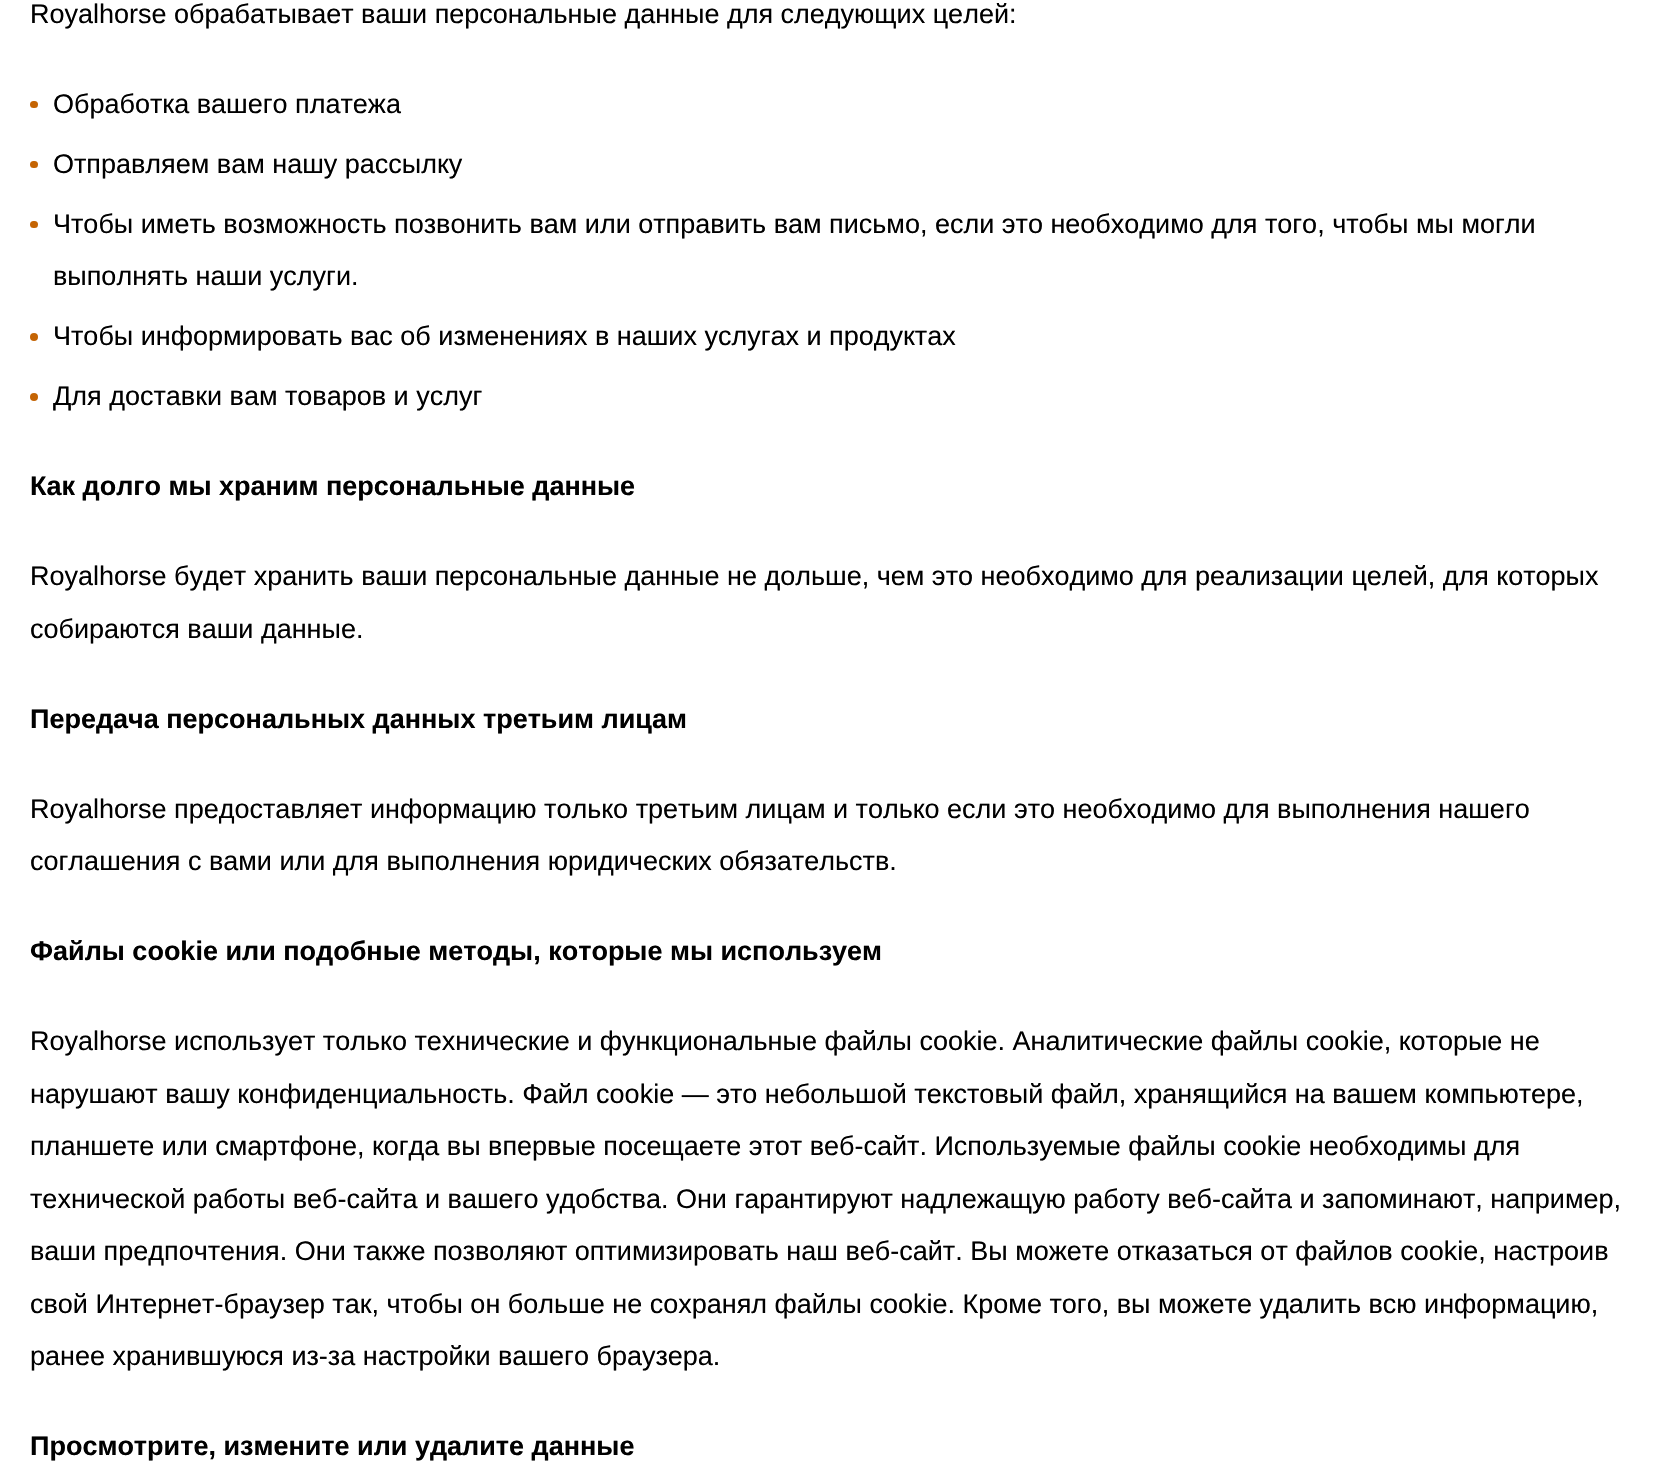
void draw(SkCanvas* canvas) {
  SkPaint paint;
  paint.setAntiAlias(true);
  auto face = [&](const char* family, int weight, float size, bool italic = false) {
    SkFontStyle style(weight, SkFontStyle::kNormal_Width,
      italic ? SkFontStyle::kItalic_Slant : SkFontStyle::kUpright_Slant);
    SkFont result(fontMgr->matchFamilyStyle(family, style), size);
    result.setSubpixel(true);
    return result;
  };
  canvas->clear(0xffffffff);
  paint.setColor(0xffc46404);
  canvas->drawRoundRect(SkRect::MakeXYWH(30, 101, 8, 7), 3.5f, 3.5f, paint);
  canvas->drawRoundRect(SkRect::MakeXYWH(30, 161, 8, 7), 3.5f, 3.5f, paint);
  canvas->drawRoundRect(SkRect::MakeXYWH(30, 221, 8, 7), 3.5f, 3.5f, paint);
  canvas->drawCircle(34, 337, 4, paint);
  canvas->drawCircle(34, 397, 4, paint);
  auto f0 = face("Liberation Sans", 400, 27);
  paint.setColor(0xff000000);
  {
    const struct { const char* s; float x, y; } items[] = {
      {"Royalhorse обрабатывает ваши персональные данные для следующих целей:", 30, 23},
      {"Обработка вашего платежа", 53, 113},
      {"Отправляем вам нашу рассылку", 53, 173},
      {"Чтобы иметь возможность позвонить вам или отправить вам письмо, если это необходимо для того, чтобы мы могли", 53, 233},
      {"выполнять наши услуги.", 53, 285},
      {"Чтобы информировать вас об изменениях в наших услугах и продуктах", 53, 345},
      {"Для доставки вам товаров и услуг", 53, 405},
    };
    for (auto [s, x, y] : items) {
      canvas->drawString(s, x, y, f0, paint);
    }
  }
  auto f1 = face("Liberation Sans", 700, 27);
  canvas->drawString("Как долго мы храним персональные данные", 30, 495, f1, paint);
  canvas->drawString("Royalhorse будет хранить ваши персональные данные не дольше, чем это необходимо для реализации целей, для которых", 30, 585, f0, paint);
  canvas->drawString("собираются ваши данные.", 30, 638, f0, paint);
  canvas->drawString("Передача персональных данных третьим лицам", 30, 728, f1, paint);
  canvas->drawString("Royalhorse предоставляет информацию только третьим лицам и только если это необходимо для выполнения нашего", 30, 818, f0, paint);
  canvas->drawString("соглашения с вами или для выполнения юридических обязательств.", 30, 870, f0, paint);
  canvas->drawString("Файлы cookie или подобные методы, которые мы используем", 30, 960, f1, paint);
  {
    const struct { const char* s; float x, y; } items[] = {
      {"Royalhorse использует только технические и функциональные файлы cookie. Аналитические файлы cookie, которые не", 30, 1050},
      {"нарушают вашу конфиденциальность. Файл cookie — это небольшой текстовый файл, хранящийся на вашем компьютере,", 30, 1103},
      {"планшете или смартфоне, когда вы впервые посещаете этот веб-сайт. Используемые файлы cookie необходимы для", 30, 1155},
      {"технической работы веб-сайта и вашего удобства. Они гарантируют надлежащую работу веб-сайта и запоминают, например,", 30, 1208},
      {"ваши предпочтения. Они также позволяют оптимизировать наш веб-сайт. Вы можете отказаться от файлов cookie, настроив", 30, 1260},
      {"свой Интернет-браузер так, чтобы он больше не сохранял файлы cookie. Кроме того, вы можете удалить всю информацию,", 30, 1313},
      {"ранее хранившуюся из-за настройки вашего браузера.", 30, 1365},
    };
    for (auto [s, x, y] : items) {
      canvas->drawString(s, x, y, f0, paint);
    }
  }
  canvas->drawString("Просмотрите, измените или удалите данные", 30, 1455, f1, paint);
}
